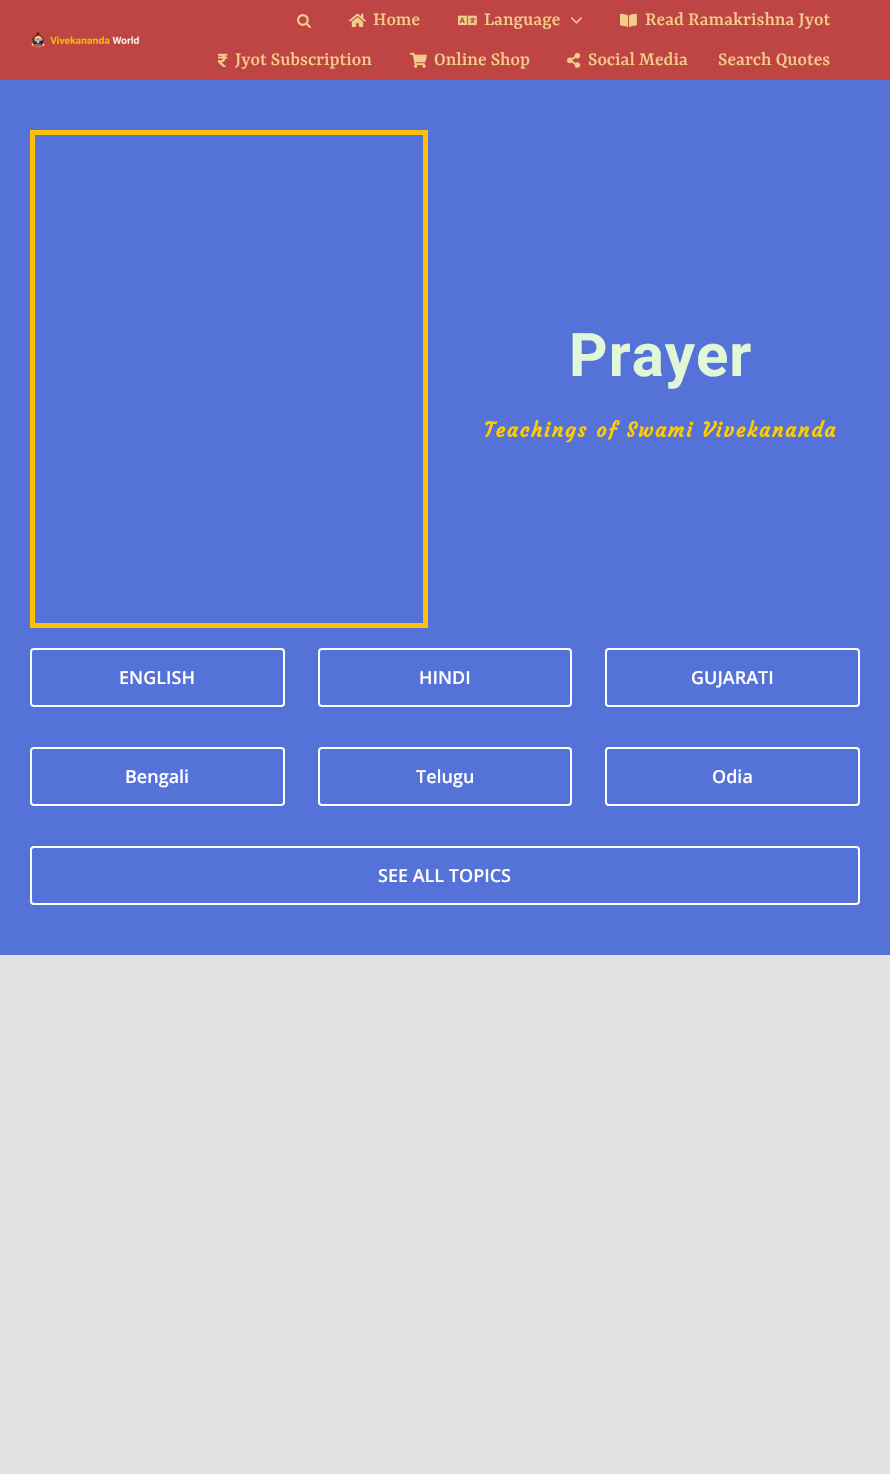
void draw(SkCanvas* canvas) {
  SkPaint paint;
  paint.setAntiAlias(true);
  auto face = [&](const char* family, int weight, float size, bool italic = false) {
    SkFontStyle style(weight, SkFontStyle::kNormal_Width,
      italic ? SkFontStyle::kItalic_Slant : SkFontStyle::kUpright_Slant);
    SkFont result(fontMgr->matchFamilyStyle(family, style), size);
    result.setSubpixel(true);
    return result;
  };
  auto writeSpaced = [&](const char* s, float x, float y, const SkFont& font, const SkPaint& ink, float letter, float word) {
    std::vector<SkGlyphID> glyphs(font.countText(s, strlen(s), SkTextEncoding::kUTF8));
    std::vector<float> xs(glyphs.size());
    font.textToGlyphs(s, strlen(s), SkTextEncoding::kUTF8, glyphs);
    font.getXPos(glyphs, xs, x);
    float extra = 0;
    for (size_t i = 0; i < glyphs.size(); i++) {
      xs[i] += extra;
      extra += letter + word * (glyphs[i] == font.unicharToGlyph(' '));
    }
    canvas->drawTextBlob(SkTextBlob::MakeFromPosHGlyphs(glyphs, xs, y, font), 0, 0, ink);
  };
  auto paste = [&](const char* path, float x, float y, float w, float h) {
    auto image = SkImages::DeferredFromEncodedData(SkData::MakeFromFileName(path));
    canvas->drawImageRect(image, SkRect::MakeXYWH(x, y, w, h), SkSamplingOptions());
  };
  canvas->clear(0xffe2e2e2);
  paint.setColor(0xff5472d8);
  canvas->drawRect(SkRect::MakeXYWH(0, 80, 890, 875), paint);
  paint.setColor(0xffbf4545);
  canvas->drawRect(SkRect::MakeXYWH(0, 0, 890, 80), paint);
  paste("img/1.png", 31, 32, 109, 16);
  paste("img/2.png", 297, 14, 14, 14);
  paste("img/3.png", 349, 13, 17, 14);
  paste("img/4.png", 458, 15, 19, 11);
  paste("img/5.png", 570, 17, 12, 7);
  paste("img/6.png", 620, 13, 17, 14);
  paste("img/7.png", 218, 53, 10, 14);
  paste("img/8.png", 410, 52, 17, 16);
  paste("img/9.png", 567, 52, 14, 16);
  paint.setStroke(true);
  paint.setStrokeWidth(5);
  paint.setColor(0xffffc107);
  canvas->drawRect(SkRect::MakeXYWH(32.5f, 132.5f, 393, 493), paint);
  paint.setStrokeWidth(2);
  paint.setColor(0xffffffff);
  canvas->drawRoundRect(SkRect::MakeXYWH(31, 649, 253, 57), 3, 3, paint);
  canvas->drawRoundRect(SkRect::MakeXYWH(319, 649, 252, 57), 3, 3, paint);
  canvas->drawRoundRect(SkRect::MakeXYWH(606, 649, 253, 57), 3, 3, paint);
  canvas->drawRoundRect(SkRect::MakeXYWH(31, 748, 253, 57), 3, 3, paint);
  canvas->drawRoundRect(SkRect::MakeXYWH(319, 748, 252, 57), 3, 3, paint);
  canvas->drawRoundRect(SkRect::MakeXYWH(606, 748, 253, 57), 3, 3, paint);
  canvas->drawRoundRect(SkRect::MakeXYWH(31, 847, 828, 57), 3, 3, paint);
  auto f0 = face("Rasa", 500, 20);
  paint.setStroke(false);
  paint.setColor(0xfff2cd88);
  {
    const struct { const char* s; float x, y; } items[] = {
      {"Home", 373, 25},
      {"Language", 484, 25},
      {"Read Ramakrishna Jyot", 645, 25},
      {"Jyot Subscription", 235, 65},
      {"Online Shop", 434, 65},
      {"Social Media", 588, 65},
      {"Search Quotes", 718, 65},
    };
    for (auto [s, x, y] : items) {
      canvas->drawString(s, x, y, f0, paint);
    }
  }
  auto f1 = face("Roboto", 700, 60);
  paint.setColor(0xffe0f8d8);
  writeSpaced("Prayer", 569, 376, f1, paint, 1, 0);
  auto f2 = face("Courgette", 700, 20);
  paint.setColor(0xffffcc00);
  writeSpaced("Teachings of Swami Vivekananda", 484, 437, f2, paint, 2, 0);
  auto f3 = face("Open Sans", 600, 18);
  paint.setColor(0xffffffff);
  {
    const struct { const char* s; float x, y; } items[] = {
      {"ENGLISH", 119, 684},
      {"HINDI", 419, 684},
      {"GUJARATI", 691, 684},
      {"Bengali", 125, 783},
      {"Telugu", 416, 783},
      {"Odia", 712, 783},
      {"SEE ALL TOPICS", 378, 882},
    };
    for (auto [s, x, y] : items) {
      canvas->drawString(s, x, y, f3, paint);
    }
  }
}
